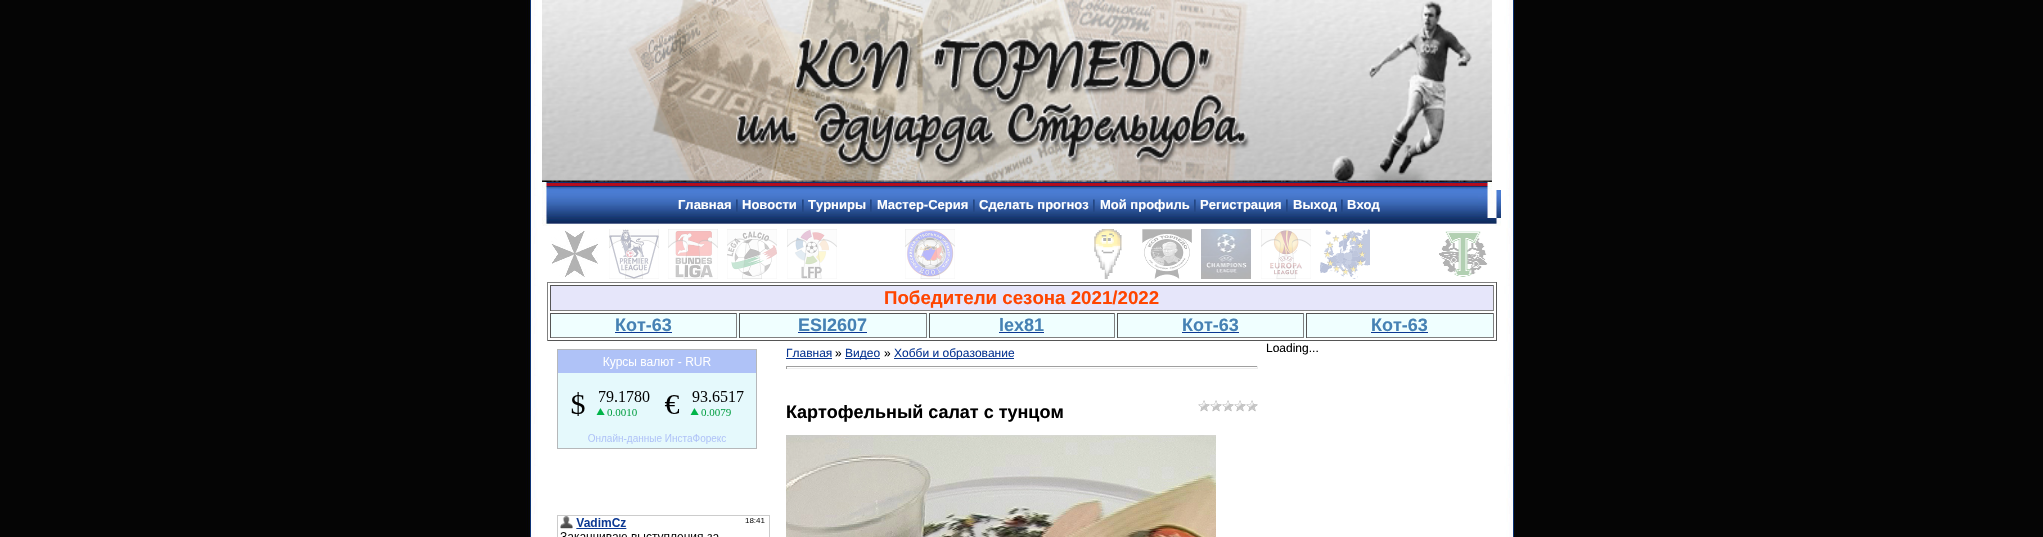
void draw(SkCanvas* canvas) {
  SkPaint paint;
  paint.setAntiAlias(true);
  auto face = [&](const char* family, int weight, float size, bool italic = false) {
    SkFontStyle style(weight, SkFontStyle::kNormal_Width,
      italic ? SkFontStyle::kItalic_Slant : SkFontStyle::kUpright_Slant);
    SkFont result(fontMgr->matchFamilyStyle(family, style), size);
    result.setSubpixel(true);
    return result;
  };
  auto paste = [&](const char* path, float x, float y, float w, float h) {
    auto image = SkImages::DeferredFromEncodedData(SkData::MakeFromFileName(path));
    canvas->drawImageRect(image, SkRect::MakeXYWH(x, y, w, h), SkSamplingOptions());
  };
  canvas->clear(0xff050505);
  paste("img/1.png", 526, 0, 992, 537);
  paste("img/2.png", 542, 0, 950, 182);
  paste("img/3.png", 542, 182, 950, 8);
  paste("img/4.png", 542, 190, 959, 28);
  paste("img/5.png", 542, 218, 959, 8);
  paste("img/6.png", 551, 230, 47, 47);
  paste("img/7.png", 609, 229, 50, 50);
  paste("img/8.png", 668, 229, 50, 50);
  paste("img/9.png", 727, 229, 50, 50);
  paste("img/10.png", 787, 229, 50, 50);
  paste("img/11.png", 905, 229, 50, 50);
  paste("img/12.png", 1094, 229, 28, 50);
  paste("img/13.png", 1142, 229, 50, 50);
  paste("img/14.png", 1201, 229, 50, 50);
  paste("img/15.png", 1261, 229, 50, 50);
  paste("img/16.png", 1320, 229, 50, 50);
  paste("img/17.png", 1439, 231, 49, 46);
  {
    const struct { float x, y, w, h; SkColor color; } items[] = {
      {547, 282, 950, 1, 0xff808080},
      {1496, 282, 1, 59, 0xff555555},
      {547, 340, 950, 1, 0xff555555},
      {547, 282, 1, 59, 0xff808080},
      {551, 286, 942, 24, 0xffe6e6fa},
      {550, 285, 944, 1, 0xff555555},
      {1493, 285, 1, 26, 0xff808080},
      {550, 310, 944, 1, 0xff808080},
      {550, 285, 1, 26, 0xff555555},
      {551, 313, 942, 25, 0xfff0ffff},
      {550, 313, 187, 1, 0xff555555},
      {736, 313, 1, 25, 0xff808080},
      {550, 337, 187, 1, 0xff808080},
      {550, 313, 1, 25, 0xff555555},
      {615, 332, 57, 1, 0xff0b3893},
      {739, 313, 188, 1, 0xff555555},
      {926, 313, 1, 25, 0xff808080},
      {739, 337, 188, 1, 0xff808080},
      {739, 313, 1, 25, 0xff555555},
      {798, 332, 69, 1, 0xff0b3893},
      {929, 313, 186, 1, 0xff555555},
      {1114, 313, 1, 25, 0xff808080},
      {929, 337, 186, 1, 0xff808080},
      {929, 313, 1, 25, 0xff555555},
      {999, 332, 45, 1, 0xff0b3893},
      {1117, 313, 187, 1, 0xff555555},
      {1303, 313, 1, 25, 0xff808080},
      {1117, 337, 187, 1, 0xff808080},
      {1117, 313, 1, 25, 0xff555555},
      {1182, 332, 57, 1, 0xff0b3893},
      {1306, 313, 188, 1, 0xff555555},
      {1493, 313, 1, 25, 0xff808080},
      {1306, 337, 188, 1, 0xff808080},
      {1306, 313, 1, 25, 0xff555555},
      {1371, 332, 57, 1, 0xff0b3893},
    };
    for (auto [x, y, w, h, color] : items) {
      paint.setColor(color);
      canvas->drawRect(SkRect::MakeXYWH(x, y, w, h), paint);
    }
  }
  paste("img/18.png", 557, 349, 200, 100);
  paste("img/19.png", 557, 515, 213, 22);
  {
    const struct { float x, y, w, h; SkColor color; } items[] = {
      {786, 358, 46, 1, 0xff0b3893},
      {845, 358, 35, 1, 0xff0b3893},
      {894, 358, 120, 1, 0xff0b3893},
      {786, 366, 472, 1, 0xff9f9f9f},
      {1257, 366, 1, 3, 0xffeeeeee},
      {786, 368, 472, 1, 0xffeeeeee},
      {786, 366, 1, 3, 0xff9f9f9f},
    };
    for (auto [x, y, w, h, color] : items) {
      paint.setColor(color);
      canvas->drawRect(SkRect::MakeXYWH(x, y, w, h), paint);
    }
  }
  paste("img/20.png", 1198, 400, 60, 12);
  paste("img/21.png", 786, 435, 430, 102);
  auto f0 = face("Liberation Sans", 700, 13);
  paint.setColor(0xffffffff);
  canvas->drawString("Главная", 678, 209, f0, paint);
  paint.setColor(0xff234785);
  canvas->drawString("|", 735, 209, f0, paint);
  paint.setColor(0xffffffff);
  canvas->drawString("Новости", 742, 209, f0, paint);
  paint.setColor(0xff234785);
  canvas->drawString("|", 801, 209, f0, paint);
  paint.setColor(0xffffffff);
  canvas->drawString("Турниры", 808, 209, f0, paint);
  paint.setColor(0xff234785);
  canvas->drawString("|", 869, 209, f0, paint);
  paint.setColor(0xffffffff);
  canvas->drawString("Мастер-Серия", 877, 209, f0, paint);
  paint.setColor(0xff234785);
  canvas->drawString("|", 972, 209, f0, paint);
  paint.setColor(0xffffffff);
  canvas->drawString("Сделать прогноз", 979, 209, f0, paint);
  paint.setColor(0xff234785);
  canvas->drawString("|", 1092, 209, f0, paint);
  paint.setColor(0xffffffff);
  canvas->drawString("Мой профиль", 1100, 209, f0, paint);
  paint.setColor(0xff234785);
  canvas->drawString("|", 1193, 209, f0, paint);
  paint.setColor(0xffffffff);
  canvas->drawString("Регистрация", 1200, 209, f0, paint);
  paint.setColor(0xff234785);
  canvas->drawString("|", 1285, 209, f0, paint);
  paint.setColor(0xffffffff);
  canvas->drawString("Выход", 1293, 209, f0, paint);
  paint.setColor(0xff234785);
  canvas->drawString("|", 1340, 209, f0, paint);
  paint.setColor(0xffffffff);
  canvas->drawString("Вход", 1347, 209, f0, paint);
  auto f1 = face("Liberation Sans", 700, 18.7f);
  paint.setColor(0xffff4500);
  canvas->drawString("Победители сезона 2021/2022", 884, 304, f1, paint);
  auto f2 = face("Liberation Sans", 700, 18);
  paint.setColor(0xff4682b4);
  {
    const struct { const char* s; float x, y; } items[] = {
      {"Кот-63", 615, 331},
      {"ESI2607", 798, 331},
      {"lex81", 999, 331},
      {"Кот-63", 1182, 331},
      {"Кот-63", 1371, 331},
    };
    for (auto [s, x, y] : items) {
      canvas->drawString(s, x, y, f2, paint);
    }
  }
  auto f3 = face("Liberation Sans", 400, 12);
  paint.setColor(0xff0b3893);
  canvas->drawString("Главная", 786, 357, f3, paint);
  paint.setColor(0xff000000);
  canvas->drawString("»", 835, 357, f3, paint);
  paint.setColor(0xff0b3893);
  canvas->drawString("Видео", 845, 357, f3, paint);
  paint.setColor(0xff000000);
  canvas->drawString("»", 884, 357, f3, paint);
  paint.setColor(0xff0b3893);
  canvas->drawString("Хобби и образование", 894, 357, f3, paint);
  paint.setColor(0xff000000);
  canvas->drawString("Картофельный салат с тунцом", 786, 418, f2, paint);
  canvas->drawString("Loading...", 1266, 352, f3, paint);
}
